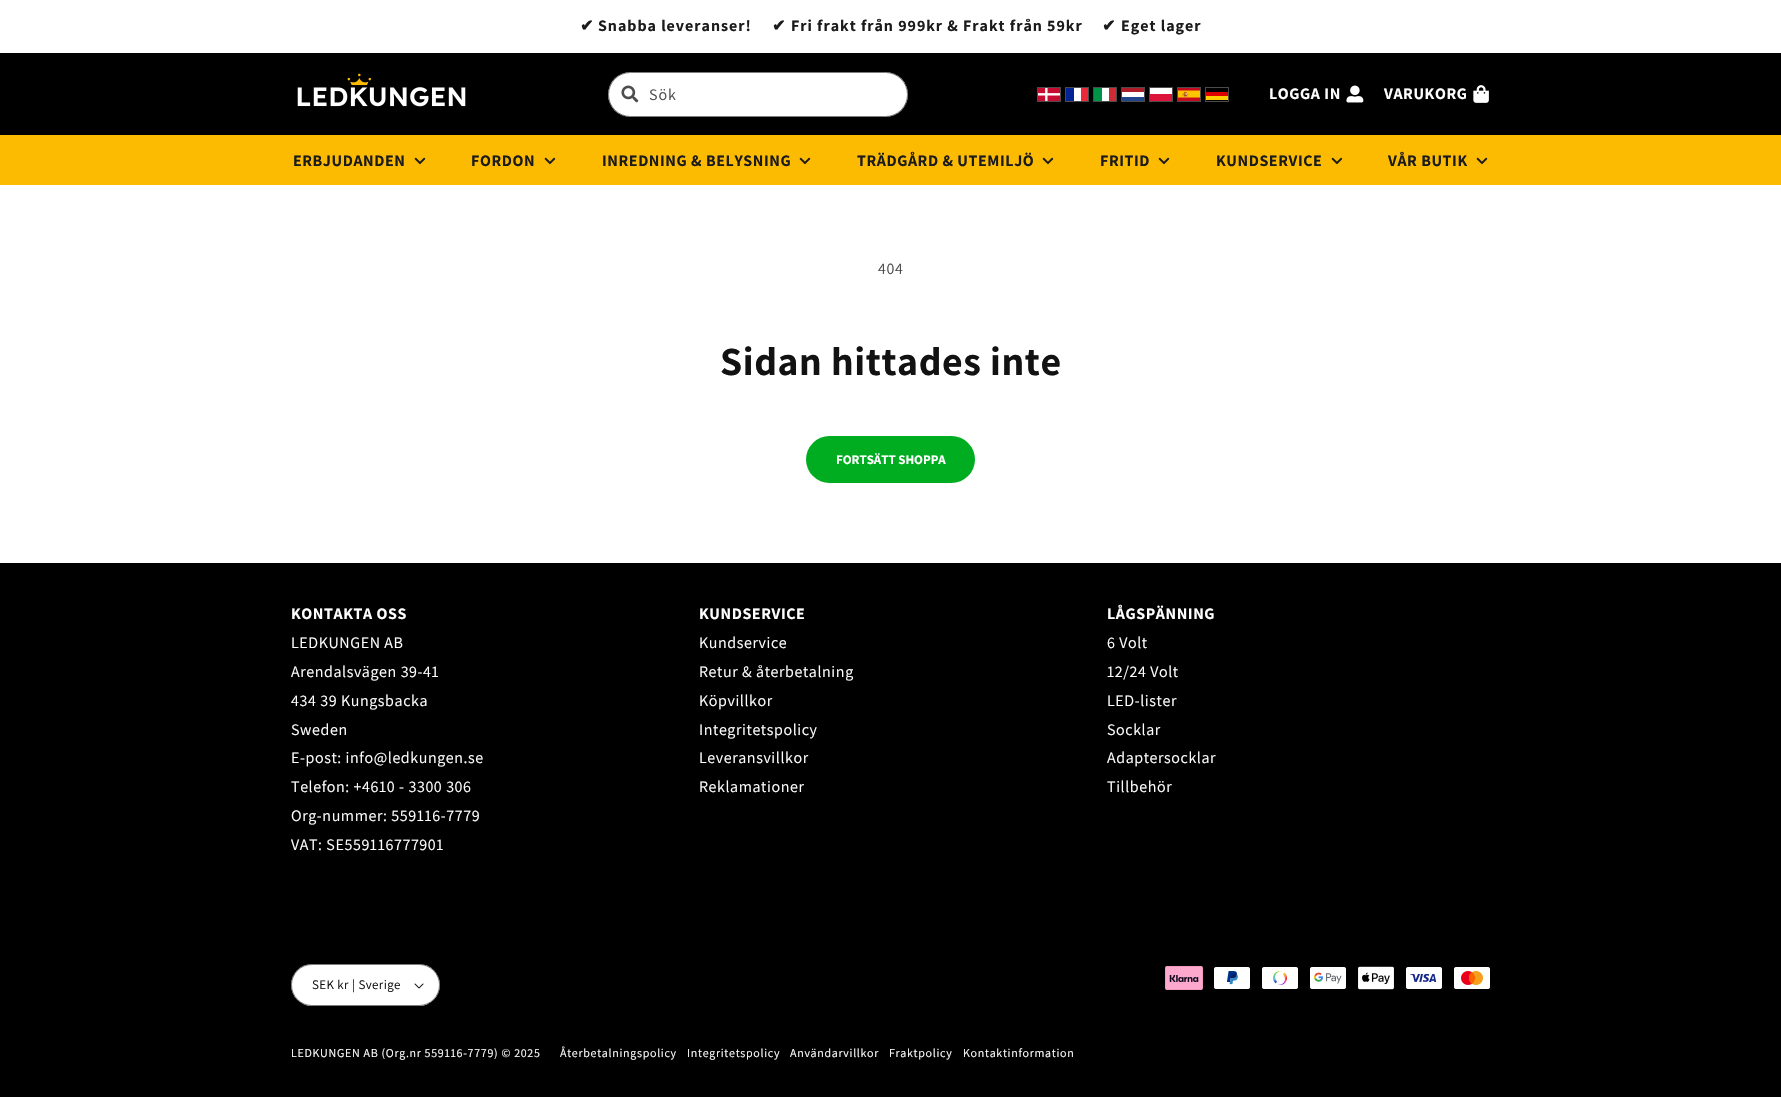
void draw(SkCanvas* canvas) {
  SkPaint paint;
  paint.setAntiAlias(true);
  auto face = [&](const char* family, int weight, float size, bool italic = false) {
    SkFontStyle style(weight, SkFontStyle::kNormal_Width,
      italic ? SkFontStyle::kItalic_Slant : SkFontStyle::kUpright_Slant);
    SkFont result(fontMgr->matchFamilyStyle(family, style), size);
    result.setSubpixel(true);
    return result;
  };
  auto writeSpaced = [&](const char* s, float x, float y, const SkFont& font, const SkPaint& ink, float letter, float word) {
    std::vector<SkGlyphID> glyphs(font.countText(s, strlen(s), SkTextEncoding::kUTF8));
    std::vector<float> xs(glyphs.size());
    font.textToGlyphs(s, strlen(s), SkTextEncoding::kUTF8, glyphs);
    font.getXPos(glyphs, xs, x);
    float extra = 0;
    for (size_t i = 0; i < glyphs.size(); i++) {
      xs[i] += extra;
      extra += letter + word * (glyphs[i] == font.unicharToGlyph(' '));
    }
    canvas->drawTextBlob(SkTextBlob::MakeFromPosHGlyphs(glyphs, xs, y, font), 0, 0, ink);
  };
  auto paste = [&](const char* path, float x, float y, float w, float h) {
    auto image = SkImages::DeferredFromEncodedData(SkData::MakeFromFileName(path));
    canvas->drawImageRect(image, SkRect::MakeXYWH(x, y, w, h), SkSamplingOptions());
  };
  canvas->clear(0xffffffff);
  paint.setColor(0xff000000);
  canvas->drawRect(SkRect::MakeXYWH(0, 53, 1781, 82), paint);
  paste("img/1.png", 297, 73, 169, 34);
  paint.setColor(0xffffffff);
  canvas->drawRoundRect(SkRect::MakeXYWH(608, 72, 300, 45), 22.5f, 22.5f, paint);
  paste("img/2.png", 621, 85, 18, 18);
  paint.setStroke(true);
  paint.setStrokeWidth(1);
  paint.setColor(0x8c121212);
  canvas->drawRoundRect(SkRect::MakeXYWH(608.5f, 72.5f, 299, 44), 22, 22, paint);
  paint.setColor(0xff4b4b4b);
  canvas->drawRect(SkRect::MakeXYWH(1037.5f, 87.5f, 23, 14), paint);
  paste("img/3.png", 1038, 88, 22, 13);
  canvas->drawRect(SkRect::MakeXYWH(1065.5f, 87.5f, 23, 14), paint);
  paint.setStroke(false);
  {
    const struct { float x, y, w, h; SkColor color; } items[] = {
      {1081, 88, 7, 13, 0xffed2939},
      {1074, 88, 7, 13, 0xffffffff},
      {1066, 88, 8, 13, 0xff002395},
    };
    for (auto [x, y, w, h, color] : items) {
      paint.setColor(color);
      canvas->drawRect(SkRect::MakeXYWH(x, y, w, h), paint);
    }
  }
  paint.setStroke(true);
  paint.setColor(0xff4b4b4b);
  canvas->drawRect(SkRect::MakeXYWH(1093.5f, 87.5f, 23, 14), paint);
  paint.setStroke(false);
  {
    const struct { float x, y, w, h; SkColor color; } items[] = {
      {1094, 88, 8, 13, 0xff009246},
      {1102, 88, 7, 13, 0xffffffff},
      {1109, 88, 7, 13, 0xffce2b37},
    };
    for (auto [x, y, w, h, color] : items) {
      paint.setColor(color);
      canvas->drawRect(SkRect::MakeXYWH(x, y, w, h), paint);
    }
  }
  paint.setStroke(true);
  paint.setColor(0xff4b4b4b);
  canvas->drawRect(SkRect::MakeXYWH(1121.5f, 87.5f, 23, 14), paint);
  paint.setStroke(false);
  {
    const struct { float x, y, w, h; SkColor color; } items[] = {
      {1122, 97, 22, 4, 0xff21468b},
      {1122, 92, 22, 5, 0xffffffff},
      {1122, 88, 22, 4, 0xffae1c28},
    };
    for (auto [x, y, w, h, color] : items) {
      paint.setColor(color);
      canvas->drawRect(SkRect::MakeXYWH(x, y, w, h), paint);
    }
  }
  paint.setStroke(true);
  paint.setColor(0xff4b4b4b);
  canvas->drawRect(SkRect::MakeXYWH(1149.5f, 87.5f, 23, 14), paint);
  paint.setStroke(false);
  paint.setColor(0xffdc143c);
  canvas->drawRect(SkRect::MakeXYWH(1150, 94, 22, 7), paint);
  paint.setColor(0xffffffff);
  canvas->drawRect(SkRect::MakeXYWH(1150, 88, 22, 6), paint);
  paint.setStroke(true);
  paint.setColor(0xff4b4b4b);
  canvas->drawRect(SkRect::MakeXYWH(1177.5f, 87.5f, 23, 14), paint);
  paste("img/4.png", 1178, 88, 22, 13);
  canvas->drawRect(SkRect::MakeXYWH(1205.5f, 87.5f, 23, 14), paint);
  paint.setStroke(false);
  paint.setColor(0xffdd0000);
  canvas->drawRect(SkRect::MakeXYWH(1206, 92, 22, 4), paint);
  paint.setColor(0xffffce00);
  canvas->drawRect(SkRect::MakeXYWH(1206, 96, 22, 4), paint);
  paste("img/5.png", 1346, 85, 18, 18);
  paste("img/6.png", 1473, 85, 16, 18);
  paint.setColor(0xfffcba00);
  canvas->drawRect(SkRect::MakeXYWH(0, 135, 1781, 50), paint);
  paste("img/7.png", 414, 157, 12, 8);
  paste("img/7.png", 544, 157, 12, 8);
  paste("img/7.png", 799, 157, 12, 8);
  paste("img/7.png", 1042, 157, 12, 8);
  paste("img/7.png", 1158, 157, 12, 8);
  paste("img/8.png", 1331, 157, 11, 8);
  paste("img/7.png", 1476, 157, 12, 8);
  paint.setColor(0xff00ad20);
  canvas->drawRoundRect(SkRect::MakeXYWH(806, 436, 169, 47), 23.5f, 23.5f, paint);
  paint.setColor(0xff000000);
  canvas->drawRect(SkRect::MakeXYWH(0, 563, 1781, 534), paint);
  paint.setColor(0xffffffff);
  canvas->drawRoundRect(SkRect::MakeXYWH(291, 964, 149, 42), 21, 21, paint);
  paste("img/9.png", 414, 983, 10, 6);
  paint.setStroke(true);
  paint.setColor(0x8c121212);
  canvas->drawRoundRect(SkRect::MakeXYWH(291.5f, 964.5f, 148, 41), 20.5f, 20.5f, paint);
  paste("img/10.png", 1165, 966, 38, 24);
  paste("img/11.png", 1214, 967, 36, 22);
  paste("img/12.png", 1262, 967, 36, 22);
  paste("img/13.png", 1310, 967, 36, 22);
  paste("img/14.png", 1358, 966, 36, 24);
  paste("img/15.png", 1406, 967, 36, 22);
  paste("img/16.png", 1454, 967, 36, 22);
  auto f0 = face("DejaVu Sans", 700, 16);
  paint.setStroke(false);
  paint.setColor(0xff1b1b1b);
  writeSpaced("✔", 580, 31, f0, paint, 1, 0);
  auto f1 = face("Assistant", 700, 16);
  writeSpaced("Snabba leveranser!", 598, 31, f1, paint, 1, 0);
  writeSpaced("✔", 772, 31, f0, paint, 1, 0);
  writeSpaced("Fri frakt från 999kr & Frakt från 59kr", 791, 31, f1, paint, 1, 0);
  writeSpaced("✔", 1102, 31, f0, paint, 1, 0);
  writeSpaced("Eget lager", 1121, 31, f1, paint, 1, 0);
  auto f2 = face("Assistant", 400, 16);
  paint.setColor(0xff4d4d4d);
  writeSpaced("Sök", 649, 100, f2, paint, 1, 0);
  paint.setColor(0xffffffff);
  writeSpaced("LOGGA IN", 1269, 99, f1, paint, 0.6f, 0);
  writeSpaced("VARUKORG", 1384, 99, f1, paint, 0.6f, 0);
  paint.setColor(0xff1b1b1b);
  {
    const struct { const char* s; float x, y; } items[] = {
      {"ERBJUDANDEN", 293, 166},
      {"FORDON", 471, 166},
      {"INREDNING & BELYSNING", 602, 166},
      {"TRÄDGÅRD & UTEMILJÖ", 857, 166},
      {"FRITID", 1100, 166},
      {"KUNDSERVICE", 1216, 166},
      {"VÅR BUTIK", 1388, 166},
    };
    for (auto [s, x, y] : items) {
      writeSpaced(s, x, y, f1, paint, 0.6f, 0);
    }
  }
  paint.setColor(0xff4d4d4d);
  writeSpaced("404", 878, 274, f2, paint, 0.6f, 0);
  auto f3 = face("Assistant", 700, 40);
  paint.setColor(0xff121212);
  writeSpaced("Sidan hittades inte", 720, 375, f3, paint, 0.6f, 0);
  auto f4 = face("Assistant", 700, 13);
  paint.setColor(0xffffffff);
  canvas->drawString("FORTSÄTT SHOPPA", 836, 464, f4, paint);
  writeSpaced("KONTAKTA OSS", 291, 619, f1, paint, 0.6f, 0);
  {
    const struct { const char* s; float x, y; } items[] = {
      {"LEDKUNGEN AB", 291, 648},
      {"Arendalsvägen 39-41", 291, 677},
      {"434 39 Kungsbacka", 291, 706},
      {"Sweden", 291, 735},
      {"E-post: info@ledkungen.se", 291, 763},
      {"Telefon: +4610 - 3300 306", 291, 792},
      {"Org-nummer: 559116-7779", 291, 821},
      {"VAT: SE559116777901", 291, 850},
    };
    for (auto [s, x, y] : items) {
      writeSpaced(s, x, y, f2, paint, 0.6f, 0);
    }
  }
  writeSpaced("KUNDSERVICE", 699, 619, f1, paint, 0.6f, 0);
  {
    const struct { const char* s; float x, y; } items[] = {
      {"Kundservice", 699, 648},
      {"Retur & återbetalning", 699, 677},
      {"Köpvillkor", 699, 706},
      {"Integritetspolicy", 699, 735},
      {"Leveransvillkor", 699, 763},
      {"Reklamationer", 699, 792},
    };
    for (auto [s, x, y] : items) {
      writeSpaced(s, x, y, f2, paint, 0.6f, 0);
    }
  }
  writeSpaced("LÅGSPÄNNING", 1107, 619, f1, paint, 0.6f, 0);
  {
    const struct { const char* s; float x, y; } items[] = {
      {"6 Volt", 1107, 648},
      {"12/24 Volt", 1107, 677},
      {"LED-lister", 1107, 706},
      {"Socklar", 1107, 735},
      {"Adaptersocklar", 1107, 763},
      {"Tillbehör", 1107, 792},
    };
    for (auto [s, x, y] : items) {
      writeSpaced(s, x, y, f2, paint, 0.6f, 0);
    }
  }
  auto f5 = face("Assistant", 400, 13);
  paint.setColor(0xff121212);
  writeSpaced("SEK kr | Sverige", 312, 989, f5, paint, 0.4f, 0);
  auto f6 = face("Assistant", 400, 12);
  paint.setColor(0xffffffff);
  {
    const struct { const char* s; float x, y; } items[] = {
      {"LEDKUNGEN AB (Org.nr 559116-7779) © 2025", 291, 1057},
      {"Återbetalningspolicy", 560, 1057},
      {"Integritetspolicy", 687, 1057},
      {"Användarvillkor", 790, 1057},
      {"Fraktpolicy", 889, 1057},
      {"Kontaktinformation", 963, 1057},
    };
    for (auto [s, x, y] : items) {
      writeSpaced(s, x, y, f6, paint, 0.7f, 0);
    }
  }
}
